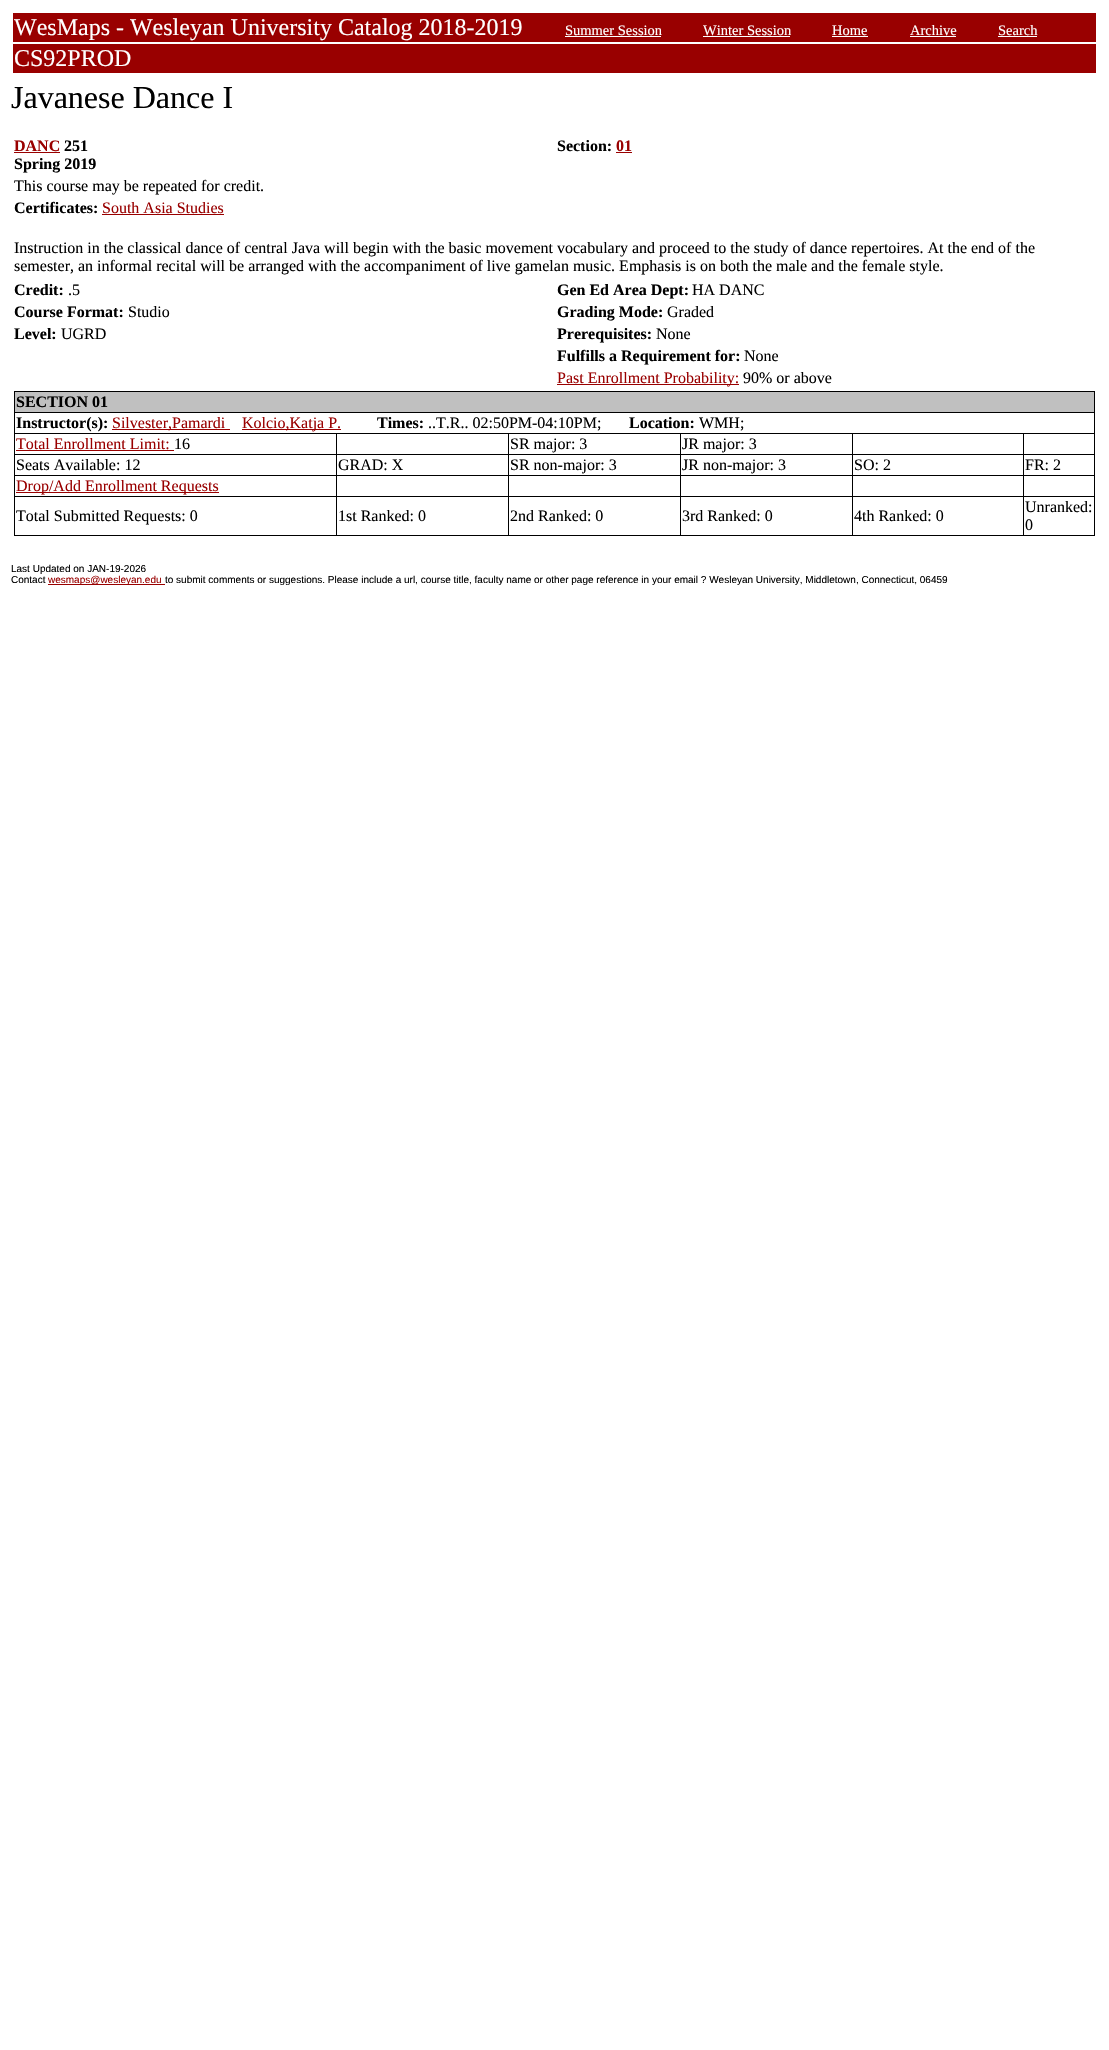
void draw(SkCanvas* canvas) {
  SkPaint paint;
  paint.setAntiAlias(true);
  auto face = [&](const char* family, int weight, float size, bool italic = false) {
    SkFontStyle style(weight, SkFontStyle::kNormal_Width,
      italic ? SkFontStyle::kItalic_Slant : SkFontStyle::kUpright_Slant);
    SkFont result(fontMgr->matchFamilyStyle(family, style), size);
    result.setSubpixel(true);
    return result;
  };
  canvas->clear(0xffffffff);
  {
    const struct { float x, y, w, h; SkColor color; } items[] = {
      {13, 13, 1083, 29, 0xff990000},
      {565, 36, 96, 1, 0xffffffff},
      {703, 36, 87, 1, 0xffffffff},
      {832, 36, 36, 1, 0xffffffff},
      {910, 36, 46, 1, 0xffffffff},
      {998, 36, 39, 1, 0xffffffff},
      {13, 44, 1083, 29, 0xff990000},
      {14, 152, 46, 1, 0xff990000},
      {616, 152, 16, 1, 0xff990000},
      {102, 214, 122, 1, 0xff990000},
      {557, 384, 182, 1, 0xff990000},
      {14, 391, 1081, 1, 0xff000000},
      {1094, 391, 1, 145, 0xff000000},
      {14, 535, 1081, 1, 0xff000000},
      {14, 391, 1, 145, 0xff000000},
      {15, 392, 1079, 20, 0xffc0c0c0},
      {14, 412, 1081, 1, 0xff000000},
      {112, 429, 118, 1, 0xff990000},
      {242, 429, 99, 1, 0xff990000},
      {1023, 433, 72, 1, 0xff000000},
      {1023, 454, 72, 1, 0xff000000},
      {1023, 475, 72, 1, 0xff000000},
      {1023, 496, 72, 1, 0xff000000},
      {1023, 496, 1, 40, 0xff000000},
      {852, 496, 172, 1, 0xff000000},
      {1023, 475, 1, 22, 0xff000000},
      {852, 475, 172, 1, 0xff000000},
      {1023, 454, 1, 22, 0xff000000},
      {852, 454, 172, 1, 0xff000000},
      {1023, 433, 1, 22, 0xff000000},
      {852, 433, 172, 1, 0xff000000},
      {852, 496, 1, 40, 0xff000000},
      {680, 496, 173, 1, 0xff000000},
      {852, 475, 1, 22, 0xff000000},
      {680, 475, 173, 1, 0xff000000},
      {852, 454, 1, 22, 0xff000000},
      {680, 454, 173, 1, 0xff000000},
      {852, 433, 1, 22, 0xff000000},
      {680, 433, 173, 1, 0xff000000},
      {680, 496, 1, 40, 0xff000000},
      {508, 496, 173, 1, 0xff000000},
      {680, 475, 1, 22, 0xff000000},
      {508, 475, 173, 1, 0xff000000},
      {680, 454, 1, 22, 0xff000000},
      {508, 454, 173, 1, 0xff000000},
      {680, 433, 1, 22, 0xff000000},
      {508, 433, 173, 1, 0xff000000},
      {508, 496, 1, 40, 0xff000000},
      {336, 496, 173, 1, 0xff000000},
      {508, 475, 1, 22, 0xff000000},
      {336, 475, 173, 1, 0xff000000},
      {508, 454, 1, 22, 0xff000000},
      {336, 454, 173, 1, 0xff000000},
      {508, 433, 1, 22, 0xff000000},
      {336, 433, 173, 1, 0xff000000},
      {336, 496, 1, 40, 0xff000000},
      {14, 496, 323, 1, 0xff000000},
      {336, 475, 1, 22, 0xff000000},
      {14, 475, 323, 1, 0xff000000},
      {336, 454, 1, 22, 0xff000000},
      {14, 454, 323, 1, 0xff000000},
      {336, 433, 1, 22, 0xff000000},
      {14, 433, 323, 1, 0xff000000},
      {16, 450, 158, 1, 0xff990000},
      {16, 492, 203, 1, 0xff990000},
      {48, 584, 117, 1, 0xff990000},
    };
    for (auto [x, y, w, h, color] : items) {
      paint.setColor(color);
      canvas->drawRect(SkRect::MakeXYWH(x, y, w, h), paint);
    }
  }
  auto f0 = face("Liberation Serif", 400, 24);
  paint.setColor(0xffffffff);
  canvas->drawString("WesMaps - Wesleyan University Catalog 2018-2019", 14, 35, f0, paint);
  auto f1 = face("Liberation Serif", 400, 14.5f);
  {
    const struct { const char* s; float x, y; } items[] = {
      {"Summer Session", 565, 35},
      {"Winter Session", 703, 35},
      {"Home", 832, 35},
      {"Archive", 910, 35},
      {"Search", 998, 35},
    };
    for (auto [s, x, y] : items) {
      canvas->drawString(s, x, y, f1, paint);
    }
  }
  canvas->drawString("CS92PROD", 14, 66, f0, paint);
  auto f2 = face("Liberation Serif", 400, 32);
  paint.setColor(0xff000000);
  canvas->drawString("Javanese Dance I", 11, 108, f2, paint);
  auto f3 = face("Liberation Serif", 700, 16);
  paint.setColor(0xff990000);
  canvas->drawString("DANC", 14, 151, f3, paint);
  paint.setColor(0xff000000);
  {
    const struct { const char* s; float x, y; } items[] = {
      {"251", 64, 151},
      {"Spring 2019", 14, 169},
      {"Section:", 557, 151},
    };
    for (auto [s, x, y] : items) {
      canvas->drawString(s, x, y, f3, paint);
    }
  }
  paint.setColor(0xff990000);
  canvas->drawString("01", 616, 151, f3, paint);
  auto f4 = face("Liberation Serif", 400, 16);
  paint.setColor(0xff000000);
  canvas->drawString("This course may be repeated for credit.", 14, 191, f4, paint);
  canvas->drawString("Certificates:", 14, 213, f3, paint);
  paint.setColor(0xff990000);
  canvas->drawString("South Asia Studies", 102, 213, f4, paint);
  paint.setColor(0xff000000);
  canvas->drawString("Instruction in the classical dance of central Java will begin with the basic movement vocabulary and proceed to the study of dance repertoires. At the end of the", 14, 253, f4, paint);
  canvas->drawString("semester, an informal recital will be arranged with the accompaniment of live gamelan music. Emphasis is on both the male and the female style.", 14, 271, f4, paint);
  canvas->drawString("Credit:", 14, 295, f3, paint);
  canvas->drawString(".5", 68, 295, f4, paint);
  canvas->drawString("Gen Ed Area Dept:", 557, 295, f3, paint);
  canvas->drawString("HA DANC", 692, 295, f4, paint);
  canvas->drawString("Course Format:", 14, 317, f3, paint);
  canvas->drawString("Studio", 128, 317, f4, paint);
  canvas->drawString("Grading Mode:", 557, 317, f3, paint);
  canvas->drawString("Graded", 667, 317, f4, paint);
  canvas->drawString("Level:", 14, 339, f3, paint);
  canvas->drawString("UGRD", 61, 339, f4, paint);
  canvas->drawString("Prerequisites:", 557, 339, f3, paint);
  canvas->drawString("None", 656, 339, f4, paint);
  canvas->drawString("Fulfills a Requirement for:", 557, 361, f3, paint);
  canvas->drawString("None", 744, 361, f4, paint);
  paint.setColor(0xff990000);
  canvas->drawString("Past Enrollment Probability:", 557, 383, f4, paint);
  paint.setColor(0xff000000);
  canvas->drawString("90% or above", 743, 383, f4, paint);
  canvas->drawString("SECTION 01", 16, 407, f3, paint);
  canvas->drawString("Instructor(s):", 16, 428, f3, paint);
  paint.setColor(0xff990000);
  canvas->drawString("Silvester,Pamardi", 112, 428, f4, paint);
  canvas->drawString("Kolcio,Katja P.", 242, 428, f4, paint);
  paint.setColor(0xff000000);
  canvas->drawString("Times:", 377, 428, f3, paint);
  canvas->drawString("..T.R.. 02:50PM-04:10PM;", 428, 428, f4, paint);
  canvas->drawString("Location:", 629, 428, f3, paint);
  canvas->drawString("WMH;", 699, 428, f4, paint);
  paint.setColor(0xff990000);
  canvas->drawString("Total Enrollment Limit:", 16, 449, f4, paint);
  paint.setColor(0xff000000);
  {
    const struct { const char* s; float x, y; } items[] = {
      {"16", 174, 449},
      {"SR major: 3", 510, 449},
      {"JR major: 3", 682, 449},
      {"Seats Available: 12", 16, 470},
      {"GRAD: X", 338, 470},
      {"SR non-major: 3", 510, 470},
      {"JR non-major: 3", 682, 470},
      {"SO: 2", 854, 470},
      {"FR: 2", 1025, 470},
    };
    for (auto [s, x, y] : items) {
      canvas->drawString(s, x, y, f4, paint);
    }
  }
  paint.setColor(0xff990000);
  canvas->drawString("Drop/Add Enrollment Requests", 16, 491, f4, paint);
  paint.setColor(0xff000000);
  {
    const struct { const char* s; float x, y; } items[] = {
      {"Total Submitted Requests: 0", 16, 521},
      {"1st Ranked: 0", 338, 521},
      {"2nd Ranked: 0", 510, 521},
      {"3rd Ranked: 0", 682, 521},
      {"4th Ranked: 0", 854, 521},
      {"Unranked:", 1025, 512},
      {"0", 1025, 530},
    };
    for (auto [s, x, y] : items) {
      canvas->drawString(s, x, y, f4, paint);
    }
  }
  auto f5 = face("Liberation Sans", 400, 10);
  canvas->drawString("Last Updated on JAN-19-2026", 11, 572, f5, paint);
  canvas->drawString("Contact", 11, 583, f5, paint);
  paint.setColor(0xff990000);
  canvas->drawString("wesmaps@wesleyan.edu", 48, 583, f5, paint);
  paint.setColor(0xff000000);
  canvas->drawString("to submit comments or suggestions. Please include a url, course title, faculty name or other page reference in your email ? Wesleyan University, Middletown, Connecticut, 06459", 165, 583, f5, paint);
}
